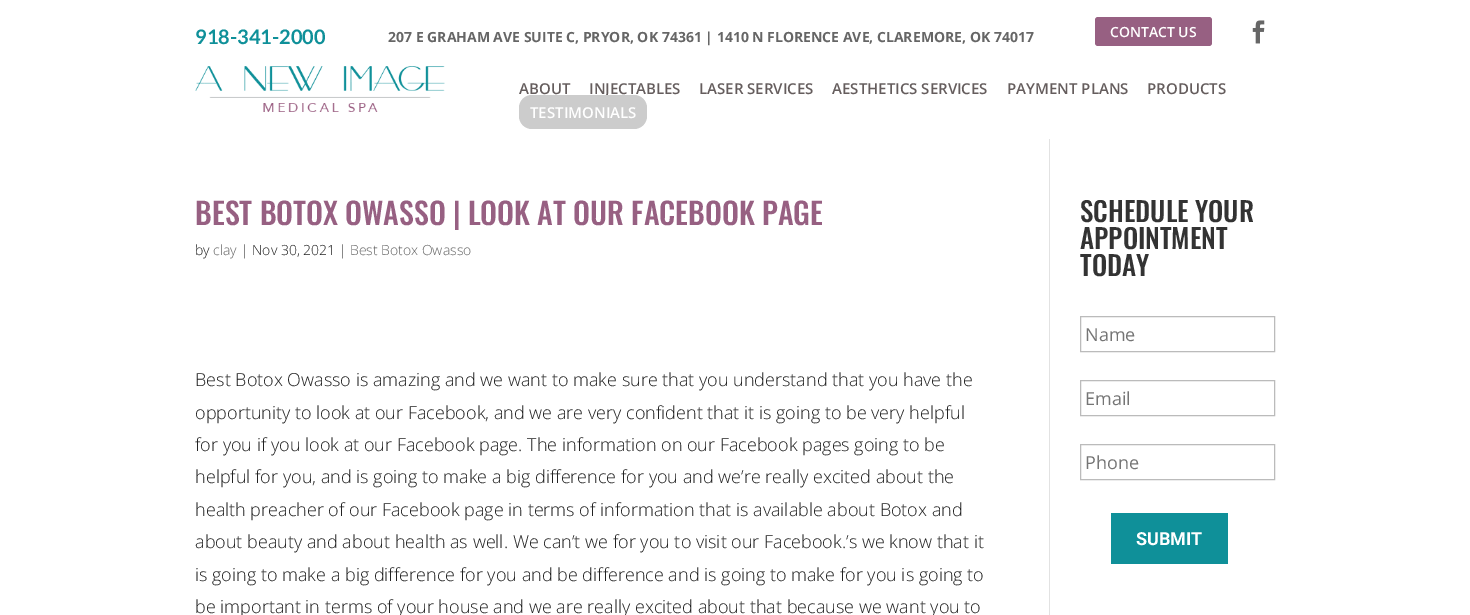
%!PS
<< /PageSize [1470 615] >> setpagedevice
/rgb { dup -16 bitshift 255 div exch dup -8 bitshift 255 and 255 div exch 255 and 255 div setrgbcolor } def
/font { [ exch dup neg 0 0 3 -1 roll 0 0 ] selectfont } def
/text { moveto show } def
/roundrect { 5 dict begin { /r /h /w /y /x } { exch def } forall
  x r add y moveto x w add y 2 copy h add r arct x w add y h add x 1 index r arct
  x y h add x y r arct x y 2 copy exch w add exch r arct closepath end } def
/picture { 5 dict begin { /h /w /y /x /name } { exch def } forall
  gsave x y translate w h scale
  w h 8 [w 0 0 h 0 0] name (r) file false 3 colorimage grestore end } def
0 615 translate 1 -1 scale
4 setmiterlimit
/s1 { /Lato-Bold 20 font 16#0F9099 rgb } def
/s2 { /OpenSans-Bold 14 font 16#666666 rgb } def
/s3 { /OpenSans-SemiBold 14 font 16#FFFFFF rgb } def
/s4 { /OpenSans-SemiBold 15 font 16#655D5D rgb } def
/s5 { /OpenSans-SemiBold 15 font 16#FFFFFF rgb } def
/s6 { /Oswald-Medium 30 font 16#976082 rgb } def
/s7 { /OpenSans-Light 14 font 16#222222 rgb } def
/s8 { /OpenSans-Light 14 font 16#666666 rgb } def
/s9 { /OpenSans-Light 18 font 16#222222 rgb } def
/s10 { /Oswald-Medium 27 font 16#333333 rgb } def
/s11 { /OpenSans-Regular 18 font 16#757575 rgb } def
/s12 { /Roboto-Bold 18 font 16#FFFFFF rgb } def
16#FFFFFF rgb
0 0 1470 615 rectfill
s1
(918-341-2000) 195 44 text
s2
(207 E GRAHAM AVE SUITE C, PRYOR, OK 74361 | 1410 N FLORENCE AVE, CLAREMORE, OK 74017) 388 42 text
16#976082 rgb
1095 17 117 29 3 roundrect fill
s3
(CONTACT US) 1110 37 text
(pic1.raw) 1252 20 13 24 picture
(pic2.raw) 195 66 250 46 picture
s4
(ABOUT) 519 94 text
(INJECTABLES) 589 94 text
(LASER SERVICES) 699 94 text
(AESTHETICS SERVICES) 832 94 text
(PAYMENT PLANS) 1007 94 text
(PRODUCTS) 1147 94 text
16#CCCCCC rgb
519 95 128 34 13 roundrect fill
s5
(TESTIMONIALS) 530 118 text
16#E2E2E2 rgb
1049 139 1 476 rectfill
s6
(BEST BOTOX OWASSO | LOOK AT OUR FACEBOOK PAGE) 195 225 text
s7
(by) 195 255 text
s8
(clay) 213 255 text
s7
(| Nov 30, 2021 |) 241 255 text
s8
(Best Botox Owasso) 350 255 text
s9
(Best Botox Owasso is amazing and we want to make sure that you understand that you have the) 195 386 text
(opportunity to look at our Facebook, and we are very confident that it is going to be very helpful) 195 419 text
(for you if you look at our Facebook page. The information on our Facebook pages going to be) 195 451 text
(helpful for you, and is going to make a big difference for you and we’re really excited about the) 195 483 text
(health preacher of our Facebook page in terms of information that is available about Botox and) 195 516 text
(about beauty and about health as well. We can’t we for you to visit our Facebook.’s we know that it) 195 548 text
(is going to make a big difference for you and be difference and is going to make for you is going to) 195 581 text
(be important in terms of your house and we are really excited about that because we want you to) 195 613 text
s10
(SCHEDULE YOUR) 1080 222 text
(APPOINTMENT) 1080 249 text
(TODAY) 1080 276 text
16#BBBBBB rgb
1080.5 316.5 194 35 rectstroke
s11
(Name) 1085 341 text
16#BBBBBB rgb
1080.5 380.5 194 35 rectstroke
s11
(Email) 1085 405 text
16#BBBBBB rgb
1080.5 444.5 194 35 rectstroke
s11
(Phone) 1085 469 text
16#0F9099 rgb
1111 513 117 51 rectfill
s12
(SUBMIT) 1136 545 text
showpage
